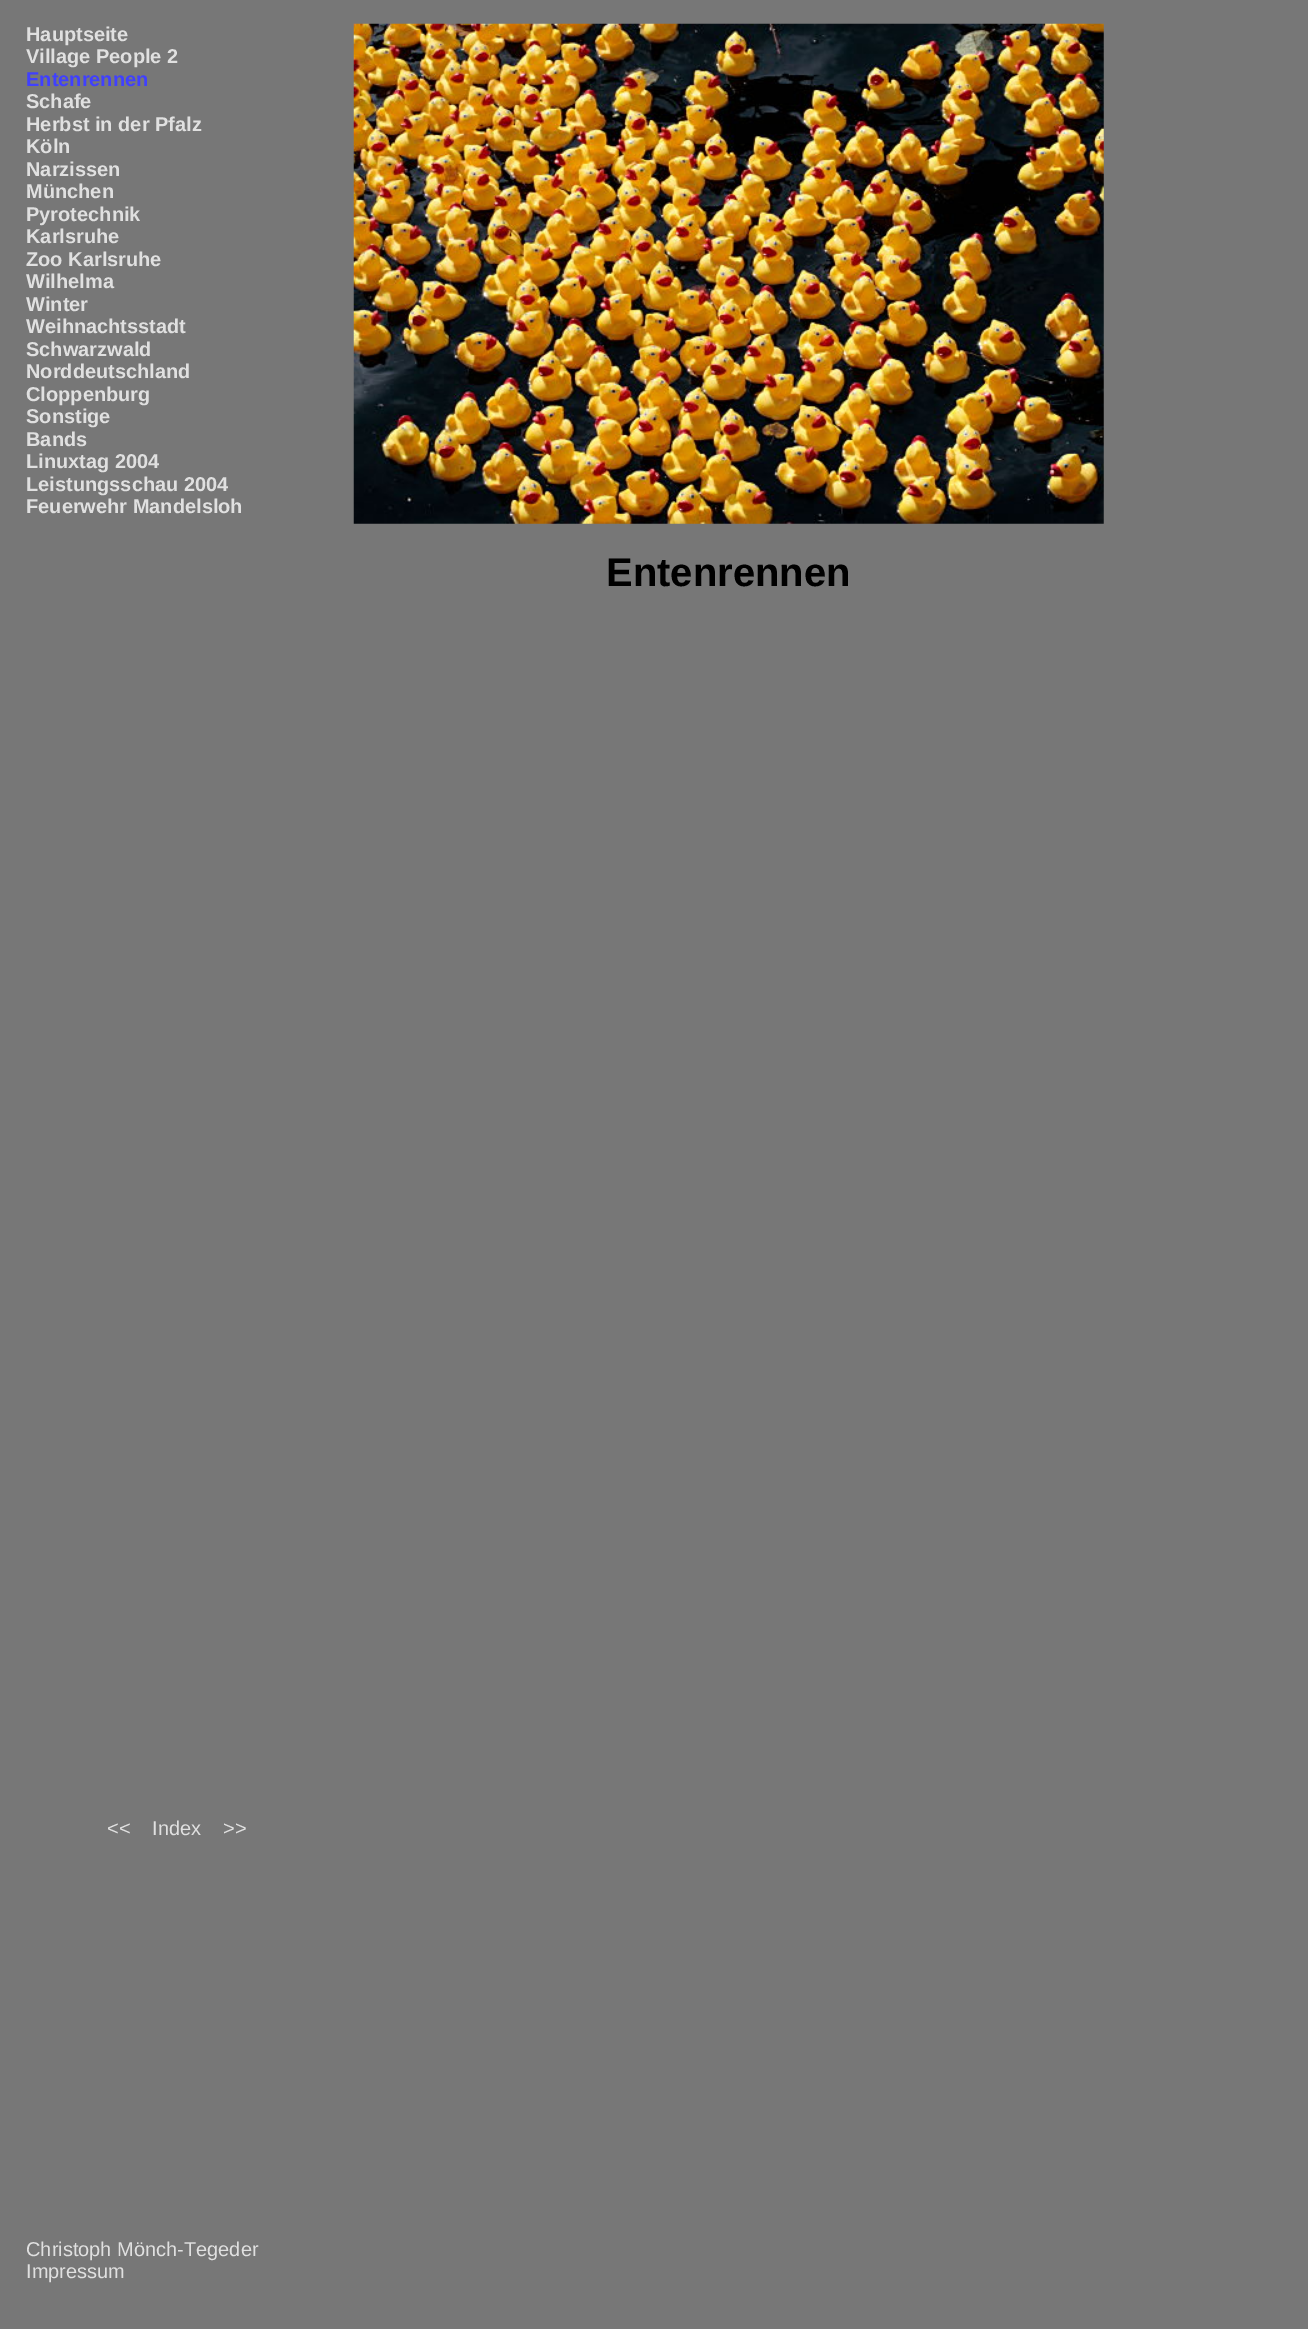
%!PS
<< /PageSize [1308 2329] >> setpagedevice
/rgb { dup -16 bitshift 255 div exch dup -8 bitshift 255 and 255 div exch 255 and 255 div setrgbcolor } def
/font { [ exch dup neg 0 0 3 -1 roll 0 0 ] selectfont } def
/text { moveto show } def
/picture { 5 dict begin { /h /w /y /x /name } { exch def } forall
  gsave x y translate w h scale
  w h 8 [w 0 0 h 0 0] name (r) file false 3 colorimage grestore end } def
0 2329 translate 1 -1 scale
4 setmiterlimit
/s1 { /LiberationSans-Bold 20 font 16#E0E0E0 rgb } def
/s2 { /LiberationSans-Bold 20 font 16#4040FF rgb } def
/s3 { /LiberationSans-Bold 40 font 16#000000 rgb } def
/s4 { /LiberationSans-Regular 20 font 16#E0E0E0 rgb } def
16#777777 rgb
0 0 1308 2329 rectfill
s1
(Hauptseite) 26 41 text
(Village People 2) 26 63 text
s2
(Entenrennen) 26 86 text
s1
(Schafe) 26 108 text
(Herbst in der Pfalz) 26 131 text
(Köln) 26 153 text
(Narzissen) 26 176 text
(München) 26 198 text
(Pyrotechnik) 26 221 text
(Karlsruhe) 26 243 text
(Zoo Karlsruhe) 26 266 text
(Wilhelma) 26 288 text
(Winter) 26 311 text
(Weihnachtsstadt) 26 333 text
(Schwarzwald) 26 356 text
(Norddeutschland) 26 378 text
(Cloppenburg) 26 401 text
(Sonstige) 26 423 text
(Bands) 26 446 text
(Linuxtag 2004) 26 468 text
(Leistungsschau 2004) 26 491 text
(Feuerwehr Mandelsloh) 26 513 text
(pic1.raw) 353 23 751 501 picture
s3
(Entenrennen) 606 586 text
s4
(<<) 107 1835 text
(Index) 152 1835 text
(>>) 223 1835 text
(Christoph Mönch-Tegeder) 26 2256 text
(Impressum) 26 2278 text
showpage
